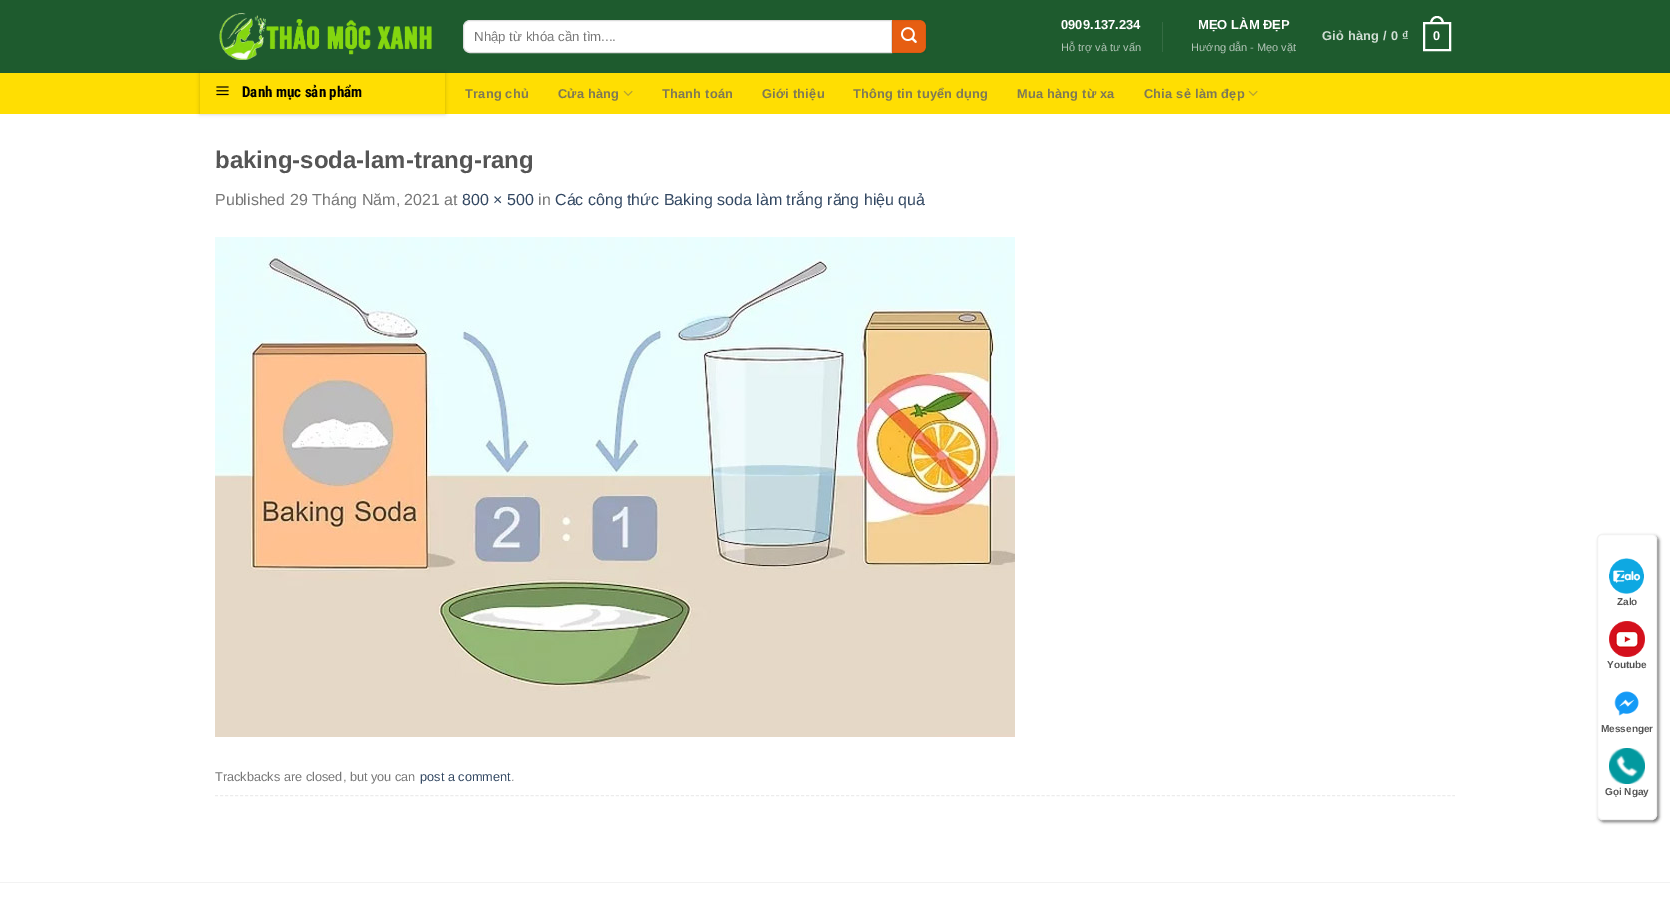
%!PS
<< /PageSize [1670 900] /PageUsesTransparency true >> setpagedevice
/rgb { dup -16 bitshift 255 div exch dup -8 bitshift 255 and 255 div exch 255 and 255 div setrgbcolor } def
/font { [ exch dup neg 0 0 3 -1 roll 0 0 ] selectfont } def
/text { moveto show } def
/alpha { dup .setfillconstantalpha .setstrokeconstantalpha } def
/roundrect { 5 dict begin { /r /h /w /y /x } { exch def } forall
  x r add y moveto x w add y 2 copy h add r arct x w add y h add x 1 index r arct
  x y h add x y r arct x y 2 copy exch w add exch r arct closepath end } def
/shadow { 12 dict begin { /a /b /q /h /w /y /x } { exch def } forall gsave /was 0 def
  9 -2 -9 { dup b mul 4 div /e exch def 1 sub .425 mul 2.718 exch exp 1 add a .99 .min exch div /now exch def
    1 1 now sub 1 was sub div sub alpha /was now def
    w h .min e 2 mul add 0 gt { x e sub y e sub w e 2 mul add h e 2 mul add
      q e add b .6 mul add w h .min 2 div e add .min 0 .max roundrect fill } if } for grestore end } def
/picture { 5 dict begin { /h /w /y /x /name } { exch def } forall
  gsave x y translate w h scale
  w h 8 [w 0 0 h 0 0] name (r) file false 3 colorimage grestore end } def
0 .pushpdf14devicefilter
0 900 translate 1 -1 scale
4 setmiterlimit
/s1 { /LiberationSans-Regular 13.25 font 16#777777 rgb } def
/s2 { /LiberationSans-Bold 13 font 16#FFFFFF rgb } def
/s3 { /LiberationSans-Regular 11 font 16#B2C4B7 rgb } def
/s4 { /RobotoCondensed-Bold 15 font 16#000000 rgb } def
/s5 { /LiberationSans-Bold 24 font 16#555555 rgb } def
/s6 { /LiberationSans-Regular 16 font 16#777777 rgb } def
/s7 { /LiberationSans-Regular 16 font 16#334862 rgb } def
/s8 { /LiberationSans-Regular 12.75 font 16#777777 rgb } def
/s9 { /LiberationSans-Regular 12.75 font 16#334862 rgb } def
/s10 { /LiberationSans-Bold 10 font 16#555555 rgb } def
16#FFFFFF rgb
0 0 1670 900 rectfill
16#1E5B2E rgb
0 0 1670 73 rectfill
(pic1.raw) 219 13 213 47 picture
16#FFFFFF rgb
470 20.5 moveto 891.5 20.5 lineto 891.5 52.5 lineto 470 52.5 lineto 466.5 52.5 463.5 49.5 463.5 46 curveto 463.5 27 lineto 463.5 23.5 466.5 20.5 470 20.5 curveto closepath gsave fill grestore
16#DDDDDD rgb
stroke
s1
(Nhập từ khóa cần tìm....) 474 41 text
16#E65E12 rgb
892 20 moveto 919 20 lineto 923 20 926 23 926 27 curveto 926 46 lineto 926 50 923 53 919 53 curveto 892 53 lineto closepath fill
0.05 alpha
16#000000 rgb
892.5 20.5 33 32 rectstroke
1 alpha
(pic2.raw) 901 27 16 16 picture
s2
(0909.137.234) 1061 29 text
s3
(Hỗ trợ và tư vấn) 1061 51 text
16#356B43 rgb
1162 22 1 30 rectfill
s2
(MẸO LÀM ĐẸP) 1198 29 text
s3
(Hướng dẫn - Mẹo vặt) 1191 51 text
/LiberationSans-Bold 12.75 font
16#D2DED5 rgb
1322 40 moveto 0.25 0 (Giỏ hàng / 0 ₫) ashow
16#FFFFFF rgb
2 setlinewidth
1424 23 26 27 rectstroke
1437 16 moveto 1441.5 16 1444 20 1444 24 curveto 1430 24 lineto 1430 20 1432.5 16 1437 16 curveto closepath 1437 18 moveto 1440.5 18 1442 21 1442 24 curveto 1432 24 lineto 1432 21 1433.5 18 1437 18 curveto closepath eofill
1433 40 moveto 0.25 0 (0) ashow
16#FFDE02 rgb
0 73 1670 41 rectfill
gsave
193 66 moveto 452 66 lineto 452 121 lineto 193 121 lineto closepath 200 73 moveto 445 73 lineto 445 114 lineto 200 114 lineto closepath eoclip newpath
16#000000 rgb
200 73 245 41 0 2 0.2 shadow
grestore
(pic3.raw) 216 86 13 10 picture
s4
(Danh mục sản phẩm) 242 97 text
/LiberationSans-Bold 12.75 font
16#7D7857 rgb
465 98 moveto 0.25 0 (Trang chủ) ashow
558 98 moveto 0.25 0 (Cửa hàng) ashow
(pic4.raw) 623 90 10 6 picture
662 98 moveto 0.25 0 (Thanh toán) ashow
762 98 moveto 0.25 0 (Giới thiệu) ashow
853 98 moveto 0.25 0 (Thông tin tuyển dụng) ashow
1017 98 moveto 0.25 0 (Mua hàng từ xa) ashow
1144 98 moveto 0.25 0 (Chia sẻ làm đẹp) ashow
(pic4.raw) 1248 90 10 6 picture
s5
(baking-soda-lam-trang-rang) 215 168 text
s6
(Published 29 Tháng Năm, 2021 at) 215 205 text
s7
(800 × 500) 462 205 text
s6
(in) 538 205 text
s7
(Các công thức Baking soda làm trắng răng hiệu quả) 555 205 text
(pic5.raw) 215 237 800 500 picture
16#ECECEC rgb
1 setlinewidth
[3 2.01] 0 setdash
215 795.5 moveto 1455 795.5 lineto stroke
s8
(Trackbacks are closed, but you can) 215 781 text
s9
(post a comment) 420 781 text
s8
(.) 511 781 text
16#F2F2F2 rgb
0 882 1670 1 rectfill
16#777777 rgb
1599 536 60 286 5 1.5 1 shadow
16#FFFFFF rgb
1597.5 534.5 59 285 4.5 roundrect gsave fill grestore
16#F2F2F2 rgb
[] 0 setdash
stroke
(pic6.raw) 1609 558 35 36 picture
s10
(Zalo) 1617 605 text
(pic7.raw) 1609 621 36 36 picture
(Youtube) 1607 668 text
(pic8.raw) 1614 691 25 25 picture
(Messenger) 1601 732 text
(pic9.raw) 1609 748 36 36 picture
(Gọi Ngay) 1605 795 text
.poppdf14devicefilter showpage
